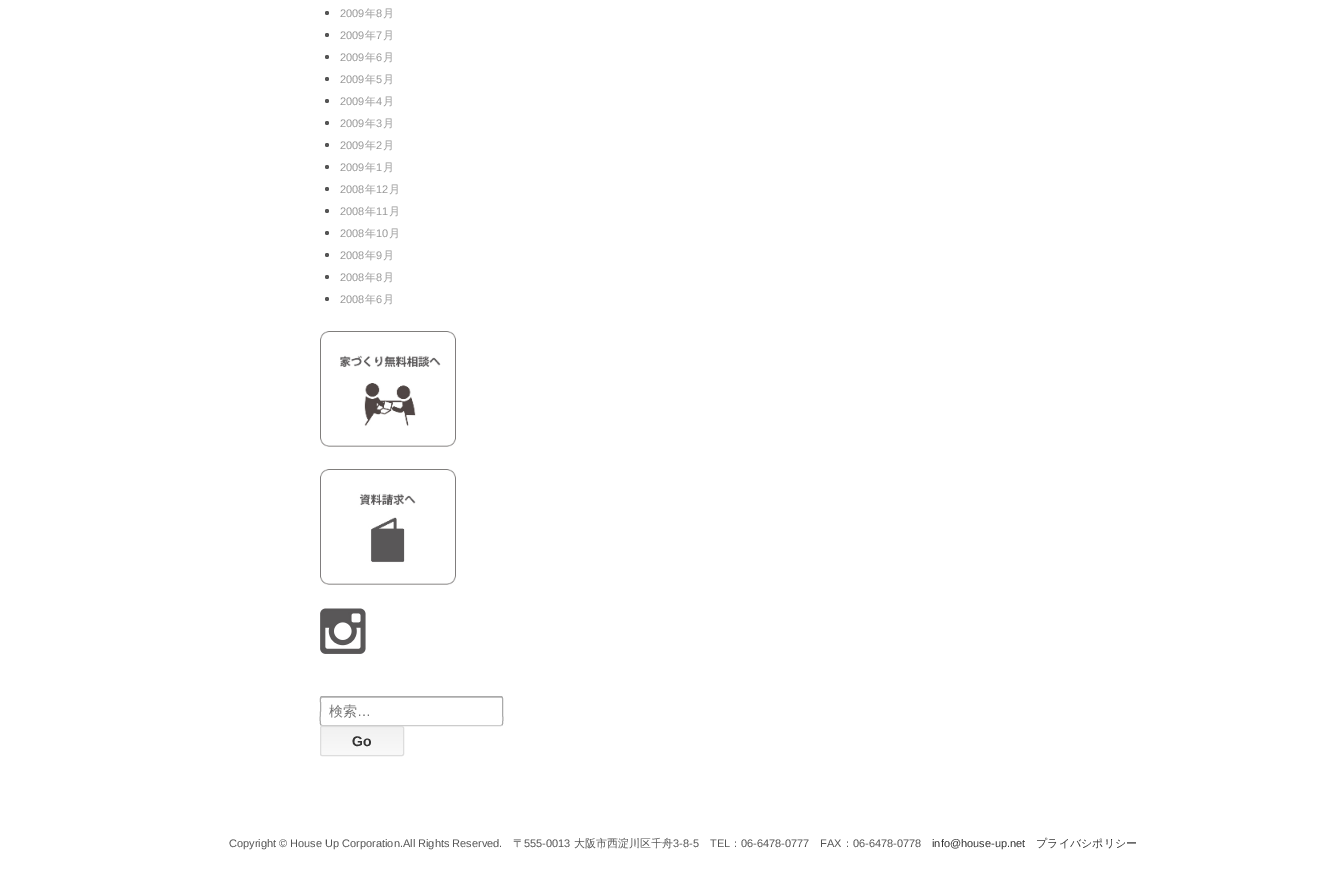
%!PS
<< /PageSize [1337 871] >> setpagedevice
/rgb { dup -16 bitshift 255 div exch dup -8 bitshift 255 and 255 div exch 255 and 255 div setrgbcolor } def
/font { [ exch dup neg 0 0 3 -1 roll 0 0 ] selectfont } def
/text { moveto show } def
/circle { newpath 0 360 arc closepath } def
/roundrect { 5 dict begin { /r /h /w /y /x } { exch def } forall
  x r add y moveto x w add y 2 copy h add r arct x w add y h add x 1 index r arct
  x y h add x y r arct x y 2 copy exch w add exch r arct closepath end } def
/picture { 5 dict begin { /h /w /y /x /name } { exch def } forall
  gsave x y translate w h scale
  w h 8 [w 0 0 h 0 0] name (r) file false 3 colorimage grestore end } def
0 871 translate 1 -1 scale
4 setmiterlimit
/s1 { /LiberationSans-Regular 11 font 16#999999 rgb } def
/s2 { /WenQuanYiZenHei-Medium 11 font 16#999999 rgb } def
/s3 { /WenQuanYiZenHei-Medium 14 font 16#757575 rgb } def
/s4 { /LiberationSans-Regular 14 font 16#757575 rgb } def
/s5 { /LiberationSans-Bold 14 font 16#333333 rgb } def
/s6 { /LiberationSans-Regular 11 font 16#555555 rgb } def
/s7 { /WenQuanYiZenHei-Medium 11 font 16#555555 rgb } def
/s8 { /LiberationSans-Regular 11 font 16#333333 rgb } def
/s9 { /WenQuanYiZenHei-Medium 11 font 16#333333 rgb } def
16#FFFFFF rgb
0 0 1337 871 rectfill
16#555555 rgb
327 13 2 circle fill
s1
(2009) 340 17 text
s2
(年) 365 17 text
s1
(8) 376 17 text
s2
(月) 383 17 text
16#555555 rgb
327 35 2 circle fill
s1
(2009) 340 39 text
s2
(年) 365 39 text
s1
(7) 376 39 text
s2
(月) 383 39 text
16#555555 rgb
327 57 2 circle fill
s1
(2009) 340 61 text
s2
(年) 365 61 text
s1
(6) 376 61 text
s2
(月) 383 61 text
16#555555 rgb
327 79 2 circle fill
s1
(2009) 340 83 text
s2
(年) 365 83 text
s1
(5) 376 83 text
s2
(月) 383 83 text
16#555555 rgb
327 101 2 circle fill
s1
(2009) 340 105 text
s2
(年) 365 105 text
s1
(4) 376 105 text
s2
(月) 383 105 text
16#555555 rgb
327 123 2 circle fill
s1
(2009) 340 127 text
s2
(年) 365 127 text
s1
(3) 376 127 text
s2
(月) 383 127 text
16#555555 rgb
327 145 2 circle fill
s1
(2009) 340 149 text
s2
(年) 365 149 text
s1
(2) 376 149 text
s2
(月) 383 149 text
16#555555 rgb
327 167 2 circle fill
s1
(2009) 340 171 text
s2
(年) 365 171 text
s1
(1) 376 171 text
s2
(月) 383 171 text
16#555555 rgb
327 189 2 circle fill
s1
(2008) 340 193 text
s2
(年) 365 193 text
s1
(12) 376 193 text
s2
(月) 389 193 text
16#555555 rgb
327 211 2 circle fill
s1
(2008) 340 215 text
s2
(年) 365 215 text
s1
(11) 376 215 text
s2
(月) 389 215 text
16#555555 rgb
327 233 2 circle fill
s1
(2008) 340 237 text
s2
(年) 365 237 text
s1
(10) 376 237 text
s2
(月) 389 237 text
16#555555 rgb
327 255 2 circle fill
s1
(2008) 340 259 text
s2
(年) 365 259 text
s1
(9) 376 259 text
s2
(月) 383 259 text
16#555555 rgb
327 277 2 circle fill
s1
(2008) 340 281 text
s2
(年) 365 281 text
s1
(8) 376 281 text
s2
(月) 383 281 text
16#555555 rgb
327 299 2 circle fill
s1
(2008) 340 303 text
s2
(年) 365 303 text
s1
(6) 376 303 text
s2
(月) 383 303 text
(pic1.raw) 320 331 136 116 picture
(pic2.raw) 320 469 136 116 picture
(pic3.raw) 320 608 46 46 picture
16#CCCCCC rgb
322 698 moveto 502 698 lineto 502 699 lineto 502 697 lineto 322 697 lineto 321 697 321 698 321 699 curveto 321 698 321 698 322 698 curveto closepath fill
502 725 moveto 501 725.5 lineto 322 725.5 lineto 321 725 lineto stroke
16#AAAAAA rgb
321 725 moveto 319.5 723.5 320.5 713 320.5 711 curveto 320.5 702.5 lineto 320.5 702 319.5 696.5 322 696.5 curveto 501 696.5 lineto 503.5 696.5 502.5 702 502.5 702.5 curveto 502.5 711 lineto 502.5 713 503.5 723.5 502 725 curveto stroke
s3
(検索) 329 716 text
s4
(…) 357 716 text
gsave
320 726 84 30 2 roundrect clip newpath
gsave 320 727 moveto 404 727 lineto 404 755 lineto 320 755 lineto closepath clip newpath
<< /ShadingType 2 /ColorSpace /DeviceRGB /Coords [362 755 362 727] /Extend [true true] /Function << /FunctionType 2 /Domain [0 1] /C0 [0.976 0.976 0.976] /C1 [0.945 0.945 0.945] /N 1 >> >> shfill grestore
grestore
16#F5F5F5 rgb
322 728 moveto 402 728 lineto 403 728 403 728 403 729 curveto 403 728 403 727 402 727 curveto 322 727 lineto 321 727 321 728 321 729 curveto 321 728 321 728 322 728 curveto closepath fill
16#DDDDDD rgb
320.5 726.5 83 29 1.5 roundrect stroke
s5
(Go) 352 746 text
s6
(Copyright © House Up Corporation.All Rights Reserved.) 229 847 text
s7
(〒) 513 847 text
s6
(555-0013) 524 847 text
s7
(大阪市西淀川区千舟) 574 847 text
s6
(3-8-5) 673 847 text
(TEL) 710 847 text
s7
(：) 730 847 text
s6
(06-6478-0777) 741 847 text
(FAX) 820 847 text
s7
(：) 842 847 text
s6
(06-6478-0778) 853 847 text
s8
(info@house-up.net) 932 847 text
s9
(プライバシポリシー) 1036 847 text
showpage
